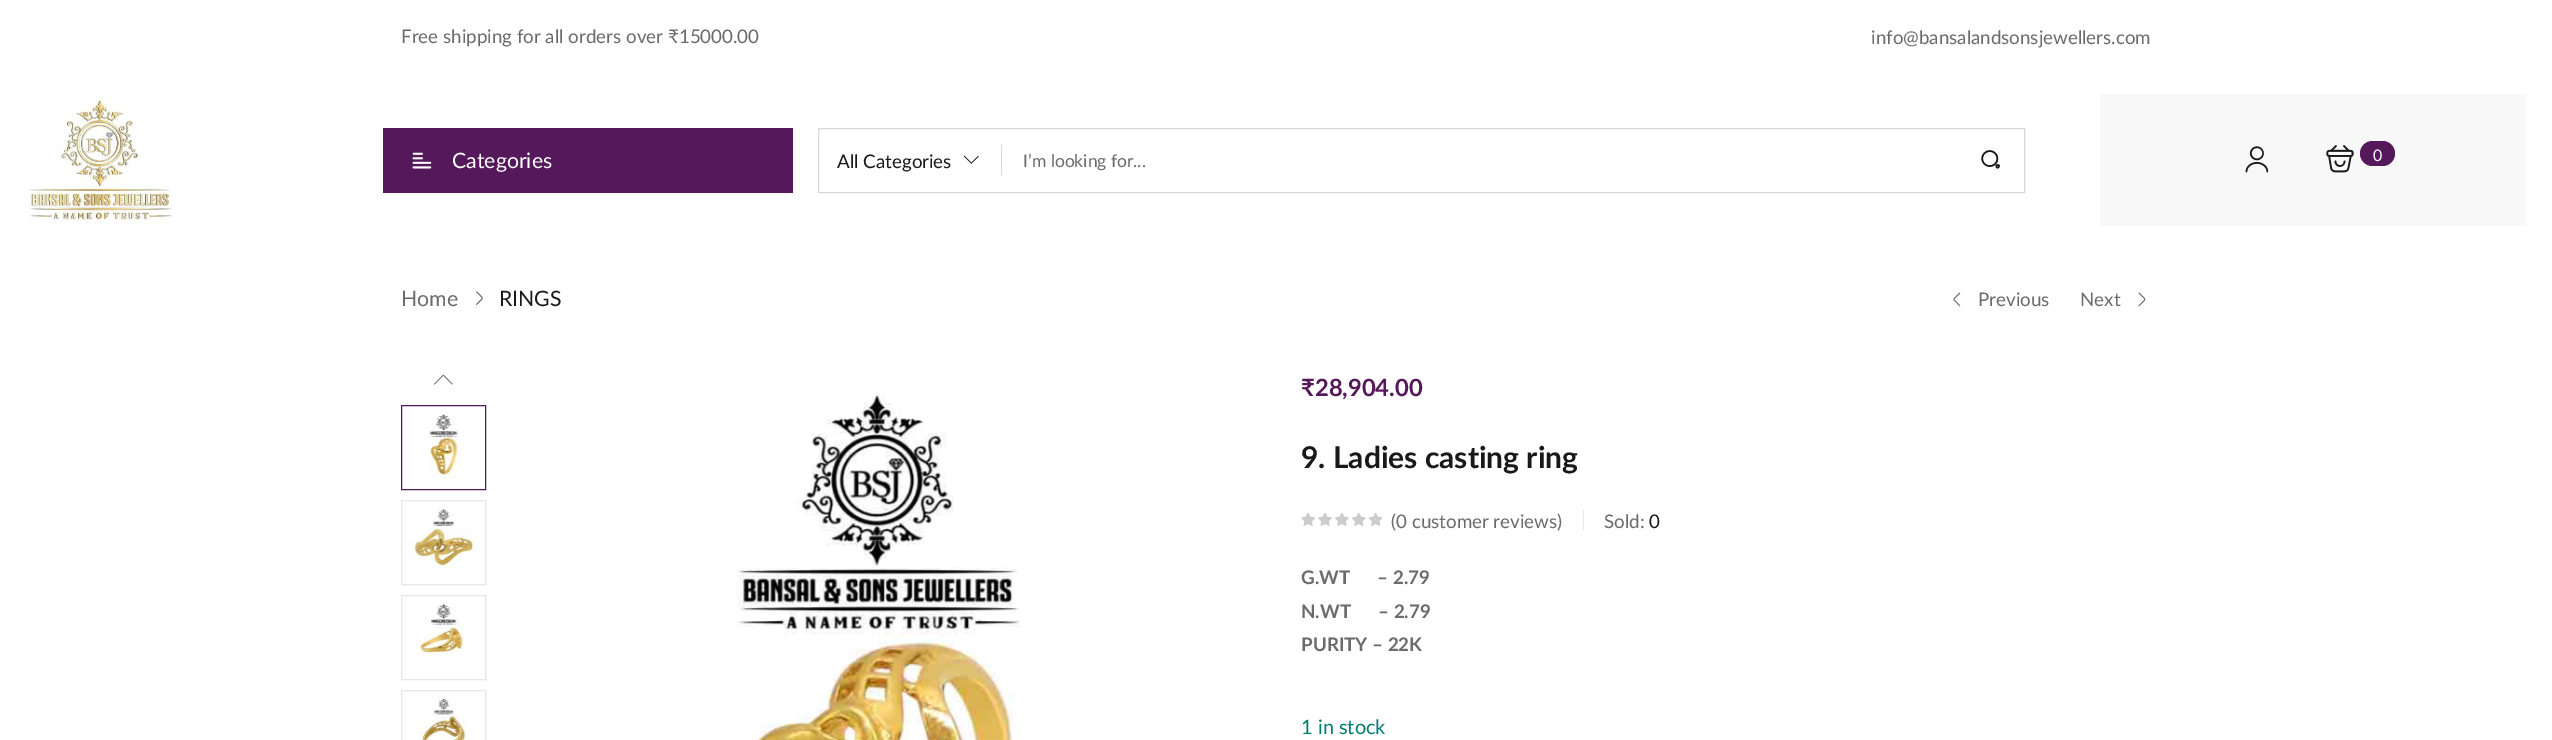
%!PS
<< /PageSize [2552 740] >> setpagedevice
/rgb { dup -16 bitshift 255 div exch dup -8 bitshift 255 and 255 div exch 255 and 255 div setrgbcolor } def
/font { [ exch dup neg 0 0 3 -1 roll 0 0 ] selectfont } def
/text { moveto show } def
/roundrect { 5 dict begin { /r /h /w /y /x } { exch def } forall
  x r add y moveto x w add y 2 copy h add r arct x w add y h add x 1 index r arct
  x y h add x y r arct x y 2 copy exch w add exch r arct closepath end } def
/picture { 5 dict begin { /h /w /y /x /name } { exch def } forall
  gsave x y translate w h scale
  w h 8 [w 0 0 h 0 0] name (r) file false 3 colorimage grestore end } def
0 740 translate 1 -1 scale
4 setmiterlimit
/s1 { /Lato-Regular 18.75 font 16#6B6B6B rgb } def
/s2 { /Lato-Regular 21.25 font 16#FFFFFF rgb } def
/s3 { /Lato-Regular 18.75 font 16#191919 rgb } def
/s4 { /Lato-Regular 17.5 font 16#6B6B6B rgb } def
/s5 { /Lato-Regular 16 font 16#FFFFFF rgb } def
/s6 { /Lato-Regular 21.25 font 16#6B6B6B rgb } def
/s7 { /Lato-Regular 21.25 font 16#191919 rgb } def
/s8 { /Lato-Bold 23.75 font 16#55185B rgb } def
/s9 { /Lato-Bold 30 font 16#191919 rgb } def
/s10 { /Lato-Bold 18.75 font 16#6B6B6B rgb } def
/s11 { /Lato-Regular 20 font 16#007D71 rgb } def
16#FFFFFF rgb
0 0 2552 740 rectfill
s1
(Free shipping for all orders over ₹15000.00) 401 43 text
(info@bansalandsonsjewellers.com) 1871 44 text
(pic1.raw) 27 96 147 130 picture
16#55185B rgb
383 128 410 65 rectfill
(pic2.raw) 412 152 20 17 picture
s2
(Categories) 452 168 text
16#D7D7D7 rgb
818.5 128.5 1206 64 rectstroke
16#D9D9D9 rgb
1001 145 1 30 rectfill
s3
(All Categories) 837 168 text
(pic3.raw) 963 155 16 9 picture
s4
(I’m looking for...) 1023 167 text
(pic4.raw) 1981 150 19 19 picture
16#F8F8F8 rgb
2100 94 426 132 rectfill
(pic5.raw) 2245 146 24 27 picture
(pic6.raw) 2326 145 28 28 picture
16#55185B rgb
2360 141 35 25 12.5 roundrect fill
s5
(0) 2373 161 text
s6
(Home) 401 306 text
(pic7.raw) 476 291 7 14 picture
s7
(RINGS) 499 306 text
(pic8.raw) 1953 292 8 15 picture
s1
(Previous) 1978 306 text
(Next) 2080 306 text
(pic9.raw) 2138 292 8 15 picture
(pic10.raw) 433 374 20 11 picture
16#55185B rgb
401.5 405.5 84 84 rectstroke
(pic11.raw) 429 412 37 69 picture
16#E7E7E7 rgb
401.5 500.5 84 84 rectstroke
(pic12.raw) 407 506 70 64 picture
401.5 595.5 84 84 rectstroke
(pic13.raw) 419 602 47 58 picture
401.5 690.5 84 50 rectstroke
(pic14.raw) 419 696 47 44 picture
(pic15.raw) 737 392 284 348 picture
s8
(₹28,904.00) 1301 396 text
s9
(9. Ladies casting ring) 1301 468 text
(pic16.raw) 1301 513 82 13 picture
s1
(\(0 customer reviews\)) 1391 528 text
16#E7E7E7 rgb
1583 510 1 20 rectfill
s1
(Sold:) 1604 528 text
s3
(0) 1649 528 text
s10
(G.WT      – 2.79) 1301 584 text
(N.WT      – 2.79) 1301 618 text
(PURITY – 22K) 1301 651 text
s11
(1 in stock) 1301 734 text
showpage
